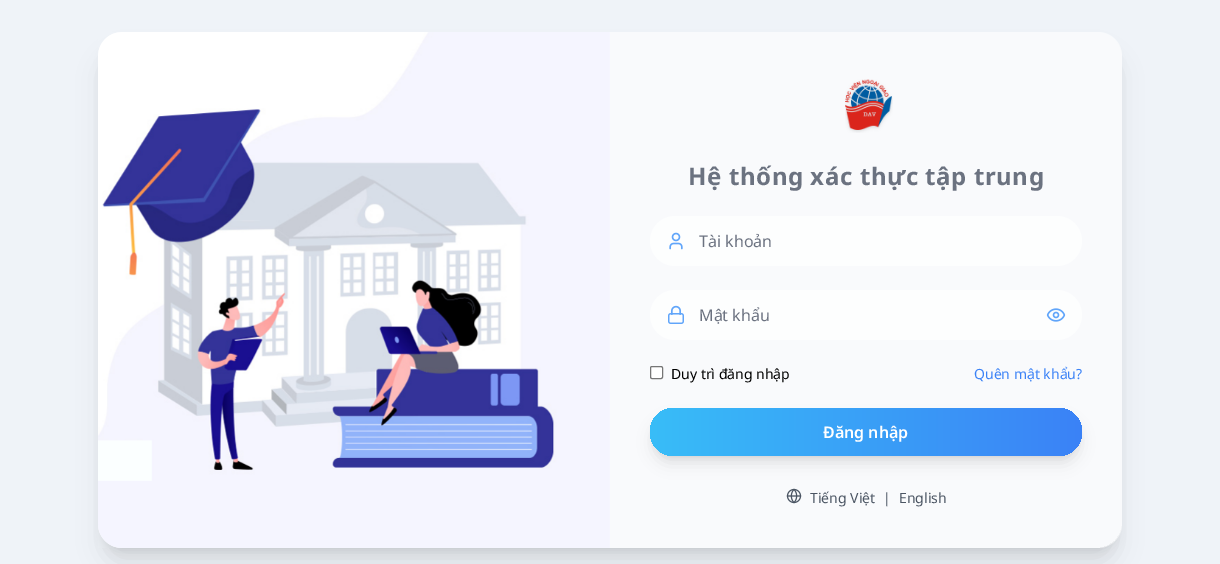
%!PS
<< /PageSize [1220 564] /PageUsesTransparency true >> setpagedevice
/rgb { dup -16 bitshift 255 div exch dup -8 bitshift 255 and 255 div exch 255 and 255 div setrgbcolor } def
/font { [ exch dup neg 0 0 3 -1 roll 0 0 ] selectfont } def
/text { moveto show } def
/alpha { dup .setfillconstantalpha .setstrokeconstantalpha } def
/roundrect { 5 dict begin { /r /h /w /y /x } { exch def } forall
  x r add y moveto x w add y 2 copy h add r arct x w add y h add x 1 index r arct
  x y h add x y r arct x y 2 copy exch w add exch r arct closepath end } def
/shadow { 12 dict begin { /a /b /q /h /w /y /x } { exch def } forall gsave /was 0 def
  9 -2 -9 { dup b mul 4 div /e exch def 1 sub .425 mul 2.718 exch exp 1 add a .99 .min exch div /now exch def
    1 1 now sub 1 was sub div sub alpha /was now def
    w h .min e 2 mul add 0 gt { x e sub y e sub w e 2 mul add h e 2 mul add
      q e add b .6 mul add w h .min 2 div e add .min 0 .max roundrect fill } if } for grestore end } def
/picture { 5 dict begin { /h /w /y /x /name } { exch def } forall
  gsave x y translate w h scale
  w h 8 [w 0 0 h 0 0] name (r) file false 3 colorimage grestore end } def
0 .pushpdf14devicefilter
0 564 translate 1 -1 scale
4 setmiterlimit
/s1 { /NotoSans-Regular 16 font 16#6B7280 rgb } def
/s2 { /NotoSans-Regular 14 font 16#000000 rgb } def
/s3 { /NotoSans-Regular 14 font 16#3B82F6 rgb } def
/s4 { /NotoSans-SemiBold 16 font 16#FFFFFF rgb } def
/s5 { /NotoSans-Regular 14 font 16#4B5563 rgb } def
16#EFF3F8 rgb
0 0 1220 564 rectfill
gsave
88 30 moveto 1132 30 lineto 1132 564 lineto 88 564 lineto closepath 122 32 moveto 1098 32 lineto 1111.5 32 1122 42.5 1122 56 curveto 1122 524 lineto 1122 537.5 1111.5 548 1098 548 curveto 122 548 lineto 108.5 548 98 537.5 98 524 curveto 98 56 lineto 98 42.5 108.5 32 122 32 curveto closepath eoclip newpath
16#000000 rgb
104 46 1012 504 18 5 0.1 shadow
grestore
gsave
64 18 moveto 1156 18 lineto 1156 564 lineto 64 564 lineto closepath 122 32 moveto 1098 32 lineto 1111.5 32 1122 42.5 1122 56 curveto 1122 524 lineto 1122 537.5 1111.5 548 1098 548 curveto 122 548 lineto 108.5 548 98 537.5 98 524 curveto 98 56 lineto 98 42.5 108.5 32 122 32 curveto closepath eoclip newpath
16#000000 rgb
103 57 1014 506 19 12.5 0.1 shadow
grestore
0.6 alpha
16#FFFFFF rgb
98 32 1024 516 24 roundrect fill
1 alpha
(pic1.raw) 98 32 512 516 picture
(pic2.raw) 845 79 48 54 picture
/NotoSans-Bold 24 font
16#6B7280 rgb
688 185 moveto 0.6 0 (Hệ thống xác thực tập trung) ashow
16#FDFEFE rgb
650 216 432 50 25 roundrect fill
(pic3.raw) 669 232 14 18 picture
s1
(Tài khoản) 699 247 text
16#FDFEFE rgb
650 290 432 50 25 roundrect fill
(pic4.raw) 668 305 16 19 picture
s1
(Mật khẩu) 699 321 text
(pic5.raw) 1046 308 20 14 picture
16#FFFFFF rgb
650.5 366.5 12 12 1.5 roundrect gsave fill grestore
16#767676 rgb
stroke
s2
(Duy trì đăng nhập) 671 379 text
s3
(Quên mật khẩu?) 974 379 text
16#000000 rgb
654 416 424 40 20 3 0.1 shadow
653 421 426 42 21 7.5 0.1 shadow
gsave 650 408 432 48 24 roundrect clip newpath
<< /ShadingType 2 /ColorSpace /DeviceRGB /Coords [650 432 1082 432] /Extend [true true] /Function << /FunctionType 2 /Domain [0 1] /C0 [0.22 0.741 0.973] /C1 [0.231 0.51 0.965] /N 1 >> >> shfill grestore
s4
(Đăng nhập) 823 438 text
(pic6.raw) 786 488 16 16 picture
s5
(Tiếng Việt) 810 503 text
(|) 883 503 text
(English) 899 503 text
.poppdf14devicefilter showpage
